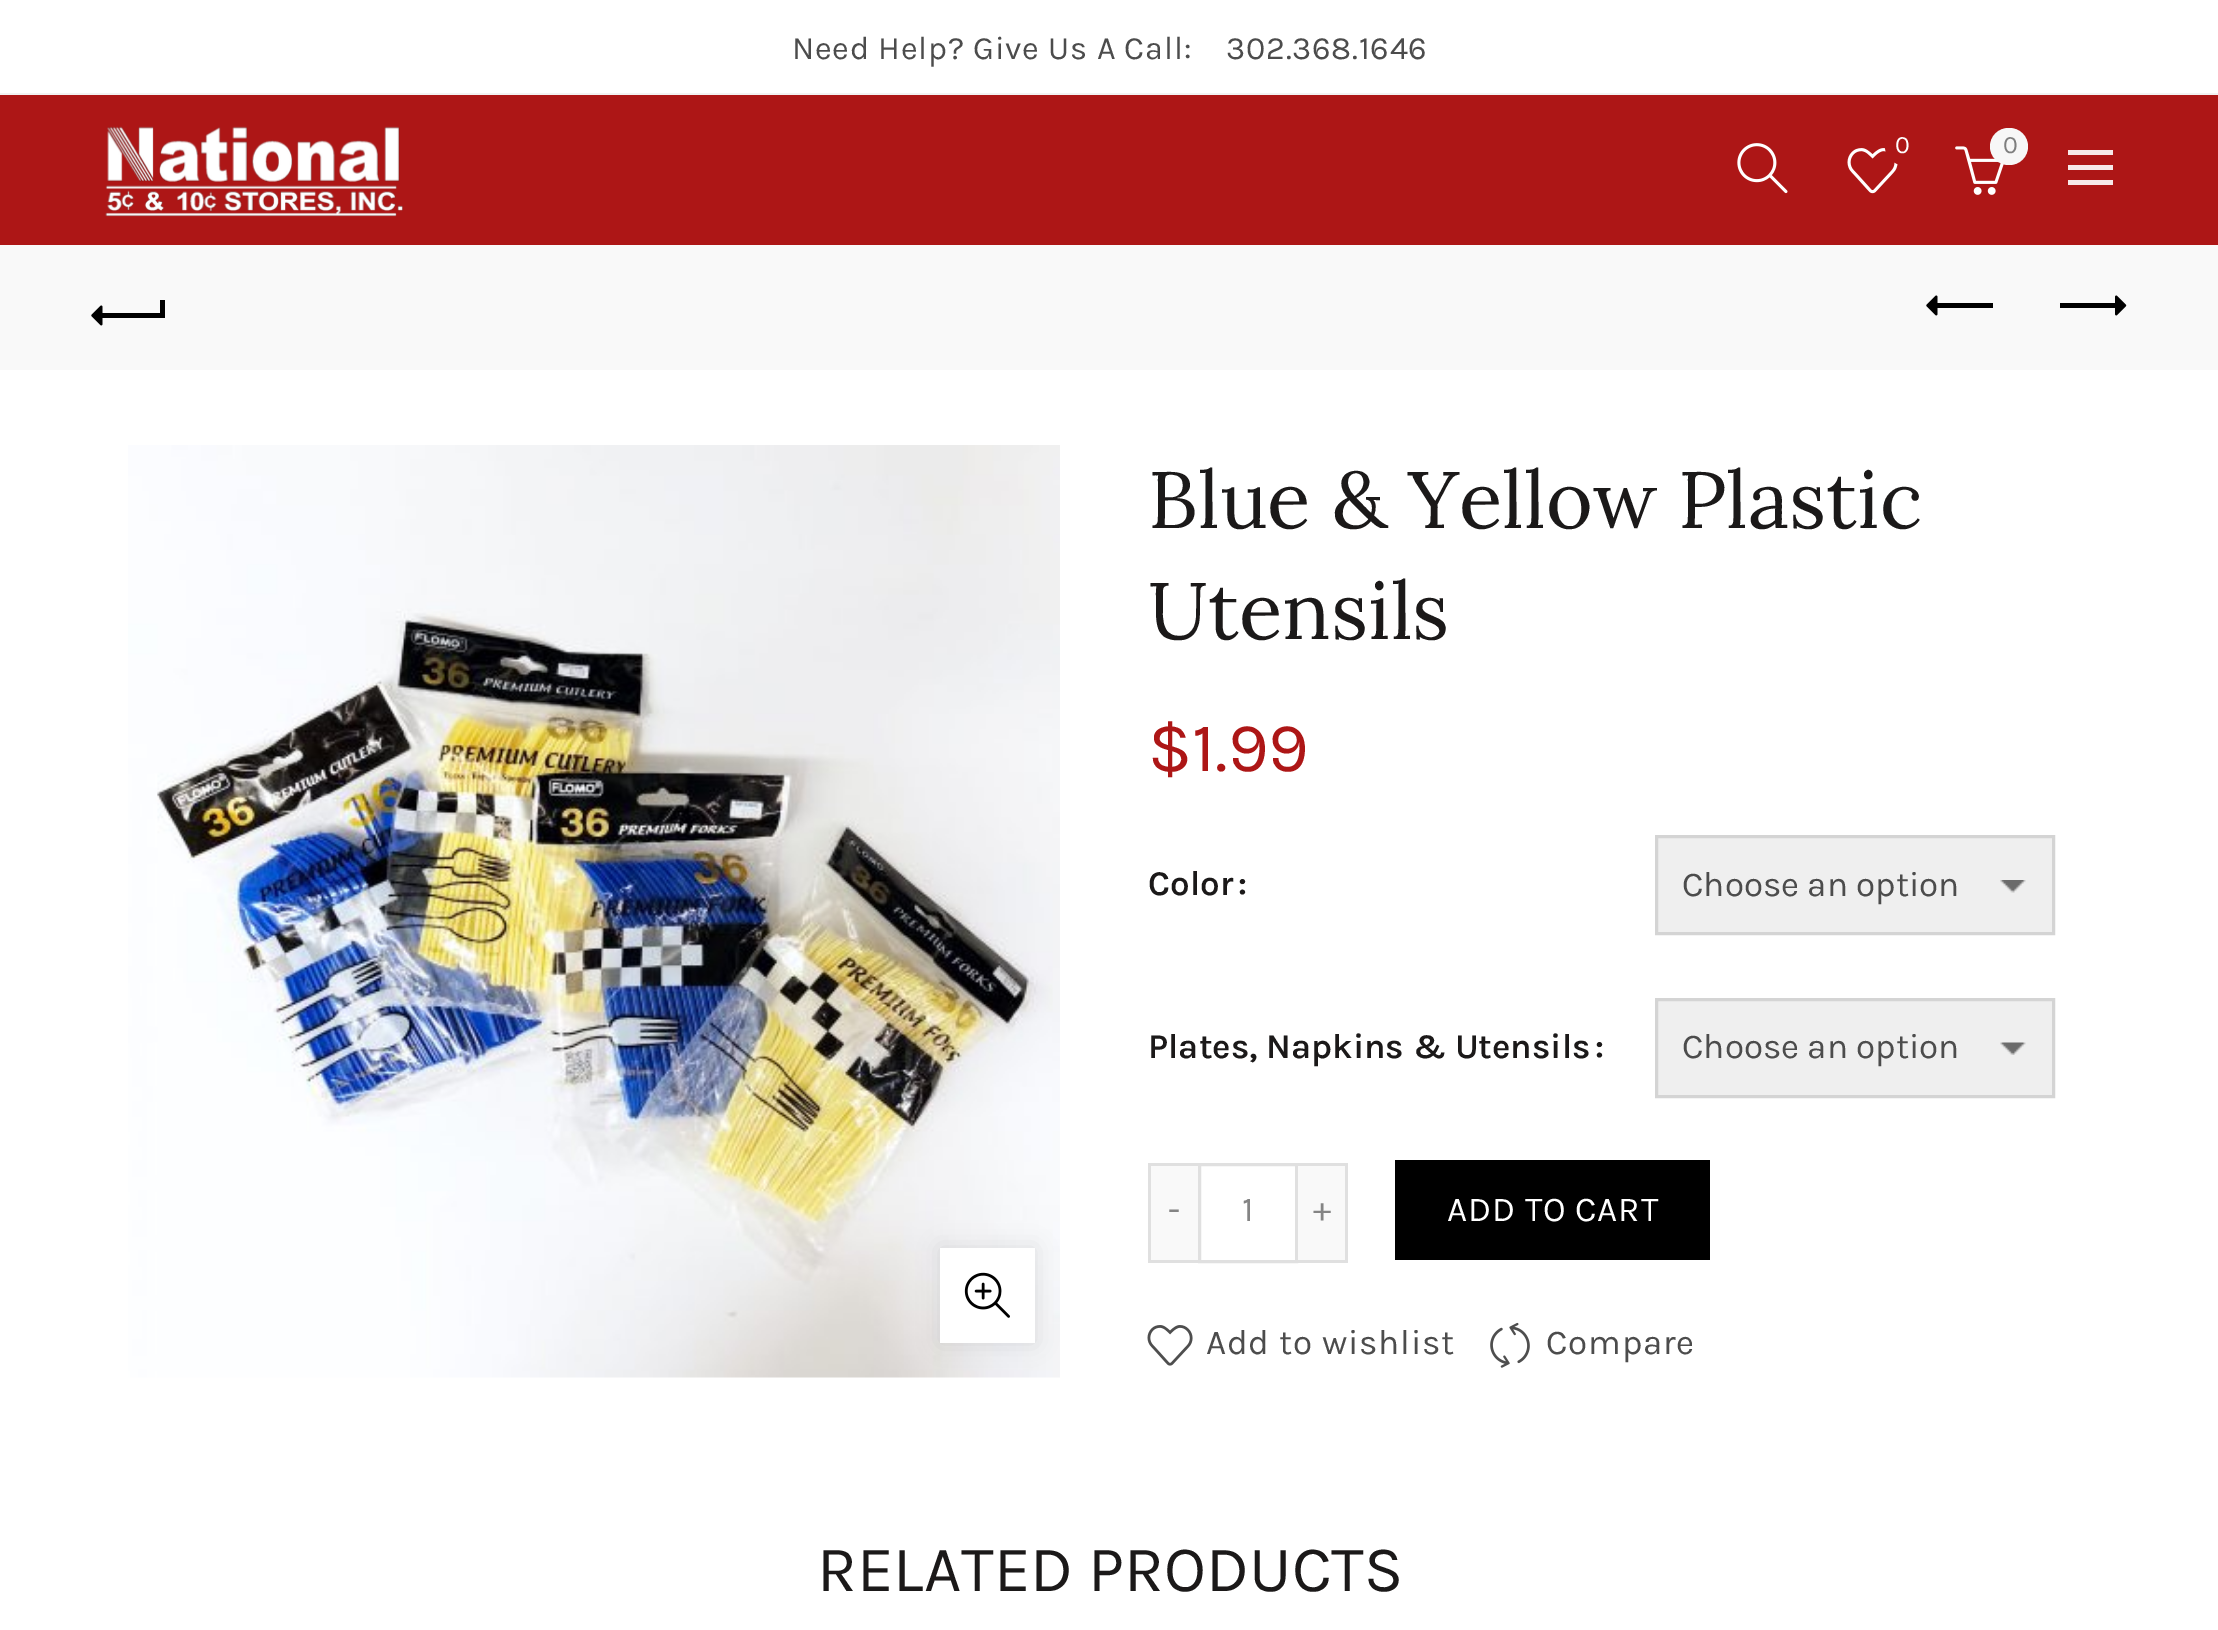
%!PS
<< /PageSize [2218 1630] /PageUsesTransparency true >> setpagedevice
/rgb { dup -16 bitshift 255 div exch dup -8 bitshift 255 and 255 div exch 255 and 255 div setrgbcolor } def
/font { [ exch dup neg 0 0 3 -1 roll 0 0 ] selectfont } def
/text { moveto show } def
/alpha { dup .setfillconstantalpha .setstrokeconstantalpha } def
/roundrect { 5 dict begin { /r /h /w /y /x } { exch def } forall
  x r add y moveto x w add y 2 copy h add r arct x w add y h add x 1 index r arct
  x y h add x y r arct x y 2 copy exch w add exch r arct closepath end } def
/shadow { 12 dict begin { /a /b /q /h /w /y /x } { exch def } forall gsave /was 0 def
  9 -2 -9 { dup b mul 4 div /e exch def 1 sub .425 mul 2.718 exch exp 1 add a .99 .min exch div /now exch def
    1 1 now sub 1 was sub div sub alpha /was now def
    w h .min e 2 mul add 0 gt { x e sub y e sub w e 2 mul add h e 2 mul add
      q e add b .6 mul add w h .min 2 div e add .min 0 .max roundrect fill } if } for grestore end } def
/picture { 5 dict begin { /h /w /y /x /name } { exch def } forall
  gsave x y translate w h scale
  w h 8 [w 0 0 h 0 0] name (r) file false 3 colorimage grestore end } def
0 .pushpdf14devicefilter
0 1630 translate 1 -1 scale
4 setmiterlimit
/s1 { /Karla-Regular 25 font 16#FFFFFF rgb } def
/s2 { /Karla-Regular 25 font 16#7E7E7E rgb } def
/s3 { /Lora-Regular 80 font 16#1B1919 rgb } def
/s4 { /Karla-Regular 70 font 16#AD1616 rgb } def
/s5 { /Karla-SemiBold 35 font 16#1B1919 rgb } def
/s6 { /Karla-Regular 35 font 16#4C4C4C rgb } def
/s7 { /Karla-Regular 35 font 16#848484 rgb } def
/s8 { /Karla-Regular 65 font 16#1B1919 rgb } def
16#FFFFFF rgb
0 0 2218 1630 rectfill
16#F2F2F2 rgb
0 93 2218 2 rectfill
/Karla-Regular 32.5 font
16#4C4C4C rgb
792 59 moveto 0.75 0 (Need Help? Give Us A Call:) ashow
1226 59 moveto 0.75 0 (302.368.1646) ashow
16#AD1616 rgb
0 95 2218 150 rectfill
(pic1.raw) 105 126 298 91 picture
(pic2.raw) 1737 143 51 51 picture
(pic3.raw) 1847 148 51 46 picture
1885 128 38 37 18.5 roundrect fill
s1
(0) 1895 153 text
(pic4.raw) 1955 146 49 49 picture
16#F7F7F7 rgb
1990 128 38 37 18.5 roundrect fill
s2
(0) 2003 153 text
16#F7E8E8 rgb
2068 165 45 5 rectfill
2068 150 45 5 rectfill
2068 180 45 5 rectfill
16#F9F9F9 rgb
0 245 2218 125 rectfill
16#000000 rgb
100 313 63 5 rectfill
(pic5.raw) 91 305 12 21 picture
160 300 5 18 rectfill
1935 303 58 5 rectfill
(pic5.raw) 1926 295 12 21 picture
2060 303 58 5 rectfill
(pic6.raw) 2115 295 12 21 picture
(pic7.raw) 128 445 932 933 picture
940 1248 95 95 0 11 0.1 shadow
16#FFFFFF rgb
940 1248 95 95 rectfill
(pic8.raw) 964 1272 46 46 picture
s3
(Blue & Yellow Plastic) 1148 528 text
(Utensils) 1148 639 text
s4
($1.99) 1148 771 text
s5
(Color) 1148 895 text
(:) 1238 895 text
16#EFEFEF rgb
1658 838 394 94 rectfill
(pic9.raw) 2000 880 26 13 picture
16#D4D4D4 rgb
3 setlinewidth
1656.5 836.5 397 97 rectstroke
s6
(Choose an option) 1682 896 text
s5
(Plates, Napkins & Utensils) 1148 1058 text
(:) 1595 1058 text
16#EFEFEF rgb
1658 1001 394 94 rectfill
(pic10.raw) 2000 1042 26 13 picture
16#D4D4D4 rgb
1656.5 999.5 397 97 rectstroke
s6
(Choose an option) 1682 1058 text
16#F9F9F9 rgb
1151 1166 47 94 rectfill
16#E0E0E0 rgb
1148 1163 50 3 rectfill
1148 1260 50 3 rectfill
1148 1163 3 100 rectfill
s7
(-) 1168 1221 text
16#E0E0E0 rgb
1199.5 1164.5 97 97 rectstroke
s7
(1) 1242 1221 text
16#F9F9F9 rgb
1298 1166 47 94 rectfill
16#E0E0E0 rgb
1298 1163 50 3 rectfill
1345 1163 3 100 rectfill
1298 1260 50 3 rectfill
s7
(+) 1313 1221 text
16#000000 rgb
1395 1160 315 100 rectfill
16#FFFFFF rgb
1447 1221 moveto 0.75 0 (ADD TO CART) ashow
(pic11.raw) 1147 1325 46 41 picture
16#4C4C4C rgb
1206 1354 moveto 0.75 0 (Add to wishlist) ashow
(pic12.raw) 1490 1322 40 46 picture
1546 1354 moveto 0.75 0 (Compare) ashow
s8
(RELATED PRODUCTS) 817 1591 text
.poppdf14devicefilter showpage
